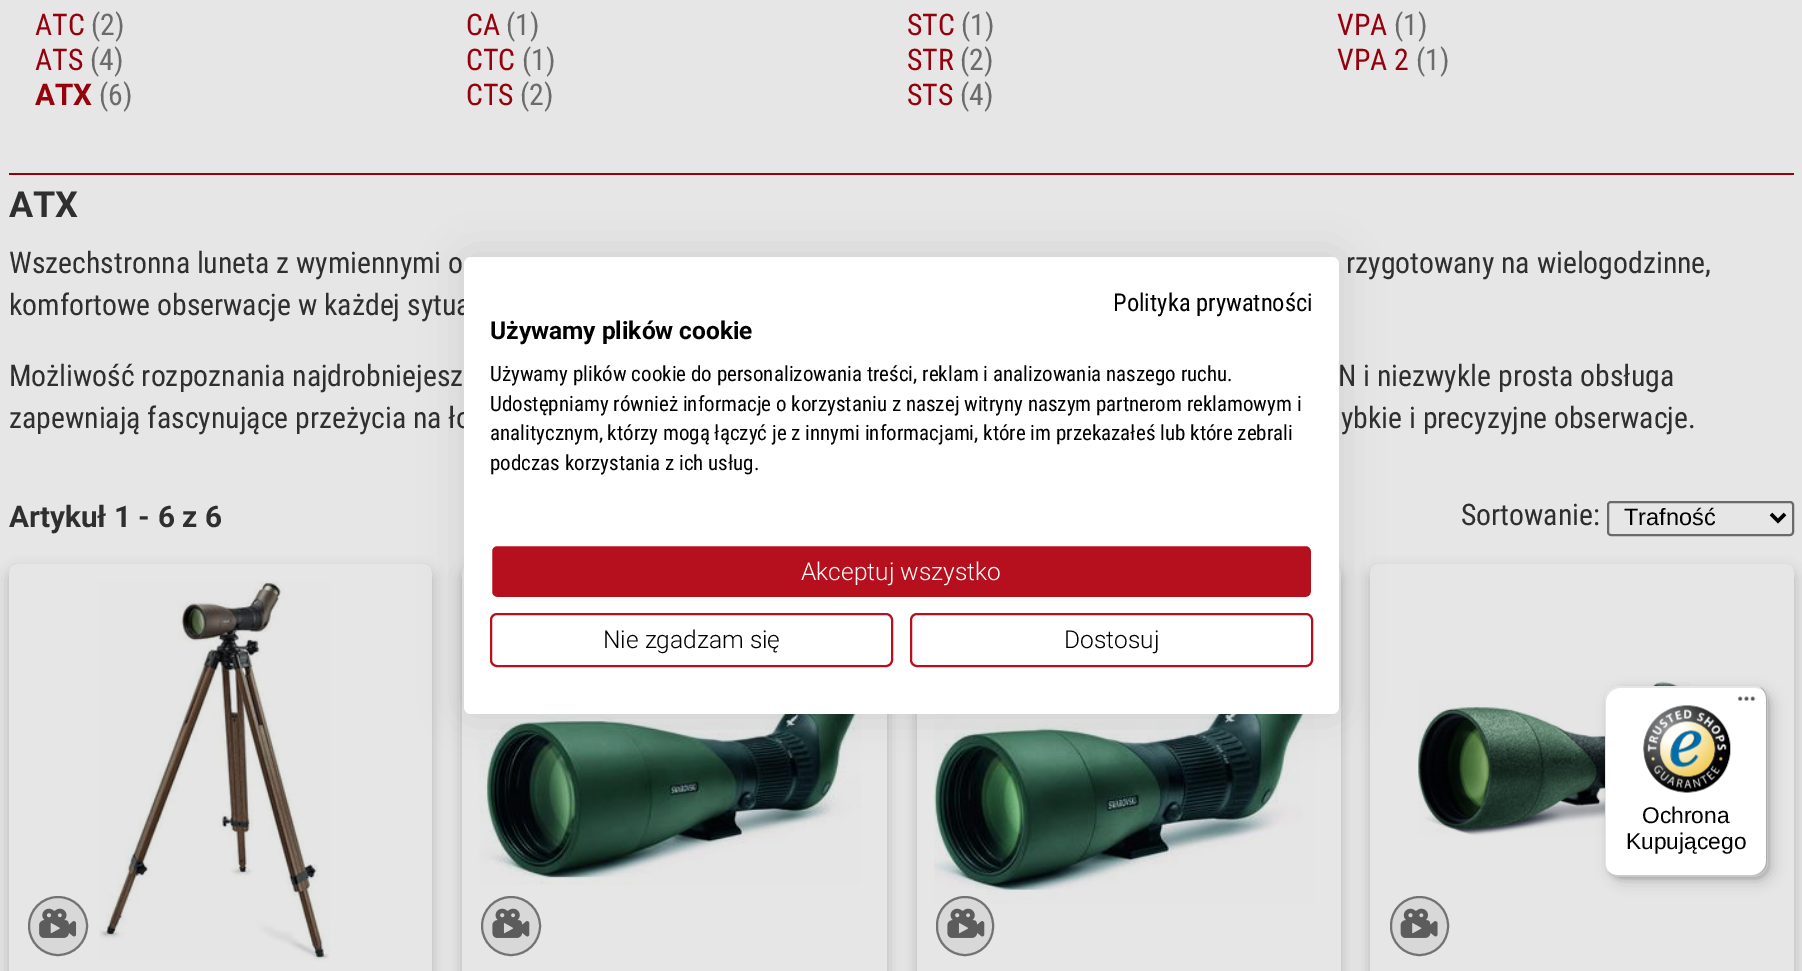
%!PS
<< /PageSize [1802 971] /PageUsesTransparency true >> setpagedevice
/rgb { dup -16 bitshift 255 div exch dup -8 bitshift 255 and 255 div exch 255 and 255 div setrgbcolor } def
/font { [ exch dup neg 0 0 3 -1 roll 0 0 ] selectfont } def
/text { moveto show } def
/alpha { dup .setfillconstantalpha .setstrokeconstantalpha } def
/circle { newpath 0 360 arc closepath } def
/roundrect { 5 dict begin { /r /h /w /y /x } { exch def } forall
  x r add y moveto x w add y 2 copy h add r arct x w add y h add x 1 index r arct
  x y h add x y r arct x y 2 copy exch w add exch r arct closepath end } def
/shadow { 12 dict begin { /a /b /q /h /w /y /x } { exch def } forall gsave /was 0 def
  9 -2 -9 { dup b mul 4 div /e exch def 1 sub .425 mul 2.718 exch exp 1 add a .99 .min exch div /now exch def
    1 1 now sub 1 was sub div sub alpha /was now def
    w h .min e 2 mul add 0 gt { x e sub y e sub w e 2 mul add h e 2 mul add
      q e add b .6 mul add w h .min 2 div e add .min 0 .max roundrect fill } if } for grestore end } def
/picture { 5 dict begin { /h /w /y /x /name } { exch def } forall
  gsave x y translate w h scale
  w h 8 [w 0 0 h 0 0] name (r) file false 3 colorimage grestore end } def
0 .pushpdf14devicefilter
0 971 translate 1 -1 scale
4 setmiterlimit
/s1 { /RobotoCondensed-Regular 29.75 font 16#95000C rgb } def
/s2 { /RobotoCondensed-Regular 29.75 font 16#6B6B6B rgb } def
/s3 { /Roboto-Bold 29.75 font 16#95000C rgb } def
/s4 { /Roboto-Bold 36 font 16#2F2F2F rgb } def
/s5 { /RobotoCondensed-Regular 29.75 font 16#2F2F2F rgb } def
/s6 { /Roboto-Bold 29.75 font 16#2F2F2F rgb } def
/s7 { /LiberationSans-Regular 23.5 font 16#000000 rgb } def
/s8 { /RobotoCondensed-Regular 24.5 font 16#000000 rgb } def
/s9 { /Roboto-Bold 24.5 font 16#000000 rgb } def
/s10 { /RobotoCondensed-Regular 21 font 16#000000 rgb } def
/s11 { /Roboto-Light 24.5 font 16#FFFFFF rgb } def
/s12 { /Roboto-Light 24.5 font 16#000000 rgb } def
/s13 { /LiberationSans-Regular 22.75 font 16#000000 rgb } def
16#E6E6E6 rgb
0 0 1802 971 rectfill
s1
(ATC) 35 35 text
s2
(\(2\)) 91 35 text
s1
(ATS) 35 70 text
s2
(\(4\)) 90 70 text
s3
(ATX) 35 105 text
s2
(\(6\)) 99 105 text
s1
(CA) 466 35 text
s2
(\(1\)) 506 35 text
s1
(CTC) 466 70 text
s2
(\(1\)) 522 70 text
s1
(CTS) 466 105 text
s2
(\(2\)) 520 105 text
s1
(STC) 907 35 text
s2
(\(1\)) 961 35 text
s1
(STR) 907 70 text
s2
(\(2\)) 960 70 text
s1
(STS) 907 105 text
s2
(\(4\)) 960 105 text
s1
(VPA) 1337 35 text
s2
(\(1\)) 1394 35 text
s1
(VPA 2) 1337 70 text
s2
(\(1\)) 1416 70 text
16#95000C rgb
9 173 1785 2 rectfill
s4
(ATX) 9 217 text
s5
(Wszechstronna luneta z wymiennymi o) 9 273 text
(rzygotowany na wielogodzinne,) 1346 273 text
(komfortowe obserwacje w każdej sytua) 9 315 text
(Możliwość rozpoznania najdrobniejesz) 9 386 text
(N i niezwykle prosta obsługa) 1338 386 text
(zapewniają fascynujące przeżycia na ło) 9 428 text
(ybkie i precyzyjne obserwacje.) 1341 428 text
s6
(Artykuł 1 - 6 z 6) 9 527 text
s5
(Sortowanie:) 1461 525 text
16#6A6A6A rgb
2 setlinewidth
1608 502 185 33 3 roundrect stroke
16#000000 rgb
3.5 setlinewidth
1771 514 moveto 1778 521 lineto 1785 514 lineto stroke
s7
(Trafność) 1624 525 text
gsave
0 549 moveto 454 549 lineto 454 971 lineto 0 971 lineto closepath 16 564 moveto 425 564 lineto 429 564 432 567 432 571 curveto 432 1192 lineto 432 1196 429 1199 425 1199 curveto 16 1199 lineto 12 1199 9 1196 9 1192 curveto 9 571 lineto 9 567 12 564 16 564 curveto closepath eoclip newpath
9 571 423 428 7 7 0.2 shadow
grestore
16#D8D8D8 rgb
58 926 29 circle gsave fill grestore
16#737373 rgb
2 setlinewidth
stroke
(pic1.raw) 39 908 38 30 picture
(pic2.raw) 99 581 231 380 picture
gsave
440 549 moveto 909 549 lineto 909 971 lineto 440 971 lineto closepath 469 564 moveto 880 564 lineto 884 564 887 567 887 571 curveto 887 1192 lineto 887 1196 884 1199 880 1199 curveto 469 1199 lineto 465 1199 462 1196 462 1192 curveto 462 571 lineto 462 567 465 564 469 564 curveto closepath eoclip newpath
16#000000 rgb
462 571 425 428 7 7 0.2 shadow
grestore
(pic3.raw) 479 714 382 171 picture
16#D8D8D8 rgb
511 926 29 circle gsave fill grestore
16#737373 rgb
stroke
(pic4.raw) 492 908 38 30 picture
gsave
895 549 moveto 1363 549 lineto 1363 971 lineto 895 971 lineto closepath 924 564 moveto 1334 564 lineto 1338 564 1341 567 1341 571 curveto 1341 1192 lineto 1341 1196 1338 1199 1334 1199 curveto 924 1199 lineto 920 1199 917 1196 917 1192 curveto 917 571 lineto 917 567 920 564 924 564 curveto closepath eoclip newpath
16#000000 rgb
917 571 424 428 7 7 0.2 shadow
grestore
(pic5.raw) 934 714 381 190 picture
16#D8D8D8 rgb
937 897 56 58 28 roundrect gsave fill grestore
16#737373 rgb
stroke
(pic4.raw) 947 908 38 30 picture
gsave
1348 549 moveto 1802 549 lineto 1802 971 lineto 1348 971 lineto closepath 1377 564 moveto 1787 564 lineto 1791 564 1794 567 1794 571 curveto 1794 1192 lineto 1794 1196 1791 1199 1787 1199 curveto 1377 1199 lineto 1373 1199 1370 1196 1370 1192 curveto 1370 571 lineto 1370 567 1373 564 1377 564 curveto closepath eoclip newpath
16#000000 rgb
1370 571 424 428 7 7 0.2 shadow
grestore
(pic6.raw) 1418 681 272 155 picture
16#D8D8D8 rgb
1391 897 57 58 28.5 roundrect gsave fill grestore
16#737373 rgb
stroke
(pic7.raw) 1400 908 38 30 picture
16#000000 rgb
464 257 875 457 7 21 0.1 shadow
16#FFFFFF rgb
464 257 875 457 7 roundrect fill
s8
(Polityka prywatności) 1113 311 text
s9
(Używamy plików cookie) 490 339 text
s10
(Używamy plików cookie do personalizowania treści, reklam i analizowania naszego ruchu.) 490 381 text
(Udostępniamy również informacje o korzystaniu z naszej witryny naszym partnerom reklamowym i) 490 411 text
(analitycznym, którzy mogą łączyć je z innymi informacjami, które im przekazałeś lub które zebrali) 490 440 text
(podczas korzystania z ich usług.) 490 470 text
16#B60F1D rgb
491 545 821 53 6 roundrect gsave fill grestore
16#FFFFFF rgb
stroke
s11
(Akceptuj wszystko) 801 580 text
16#B60F1D rgb
491 614 401 52 6 roundrect stroke
s12
(Nie zgadzam się) 603 648 text
16#B60F1D rgb
911 614 401 52 6 roundrect stroke
s12
(Dostosuj) 1064 648 text
1610 691 163 191 14 7 0.15 shadow
1607 688 162 191 14 2 0.15 shadow
16#FFFFFF rgb
1605 686 163 191 14 roundrect fill
0.1 alpha
16#000000 rgb
1620 688 moveto 1755 688 lineto 1760 688 1764 690 1767 694 curveto 1764 689 1760 686 1754 686 curveto 1619 686 lineto 1611 686 1605 692 1605 700 curveto 1605 863 lineto 1605 868 1607 872 1611 874 curveto 1608 872 1606 868 1606 864 curveto 1606 702 lineto 1606 694 1613 688 1620 688 curveto closepath fill
0.2 alpha
1609 872 moveto 1611 875 1615 877 1619 877 curveto 1754 877 lineto 1762 877 1768 871 1768 863 curveto 1768 700 lineto 1768 695 1765 690 1761 688 curveto 1764 691 1766 694 1766 698 curveto 1766 861 lineto 1766 869 1759 875 1752 875 curveto 1617 875 lineto 1614 875 1611 874 1609 872 curveto closepath fill
16#323232 rgb
1608 871 moveto 1610 875 1614 877 1619 877 curveto 1754 877 lineto 1762 877 1768 871 1768 863 curveto 1768 700 lineto 1768 694 1765 690 1760 687 curveto 1764 690 1766 694 1766 699 curveto 1766 862 lineto 1766 869 1760 876 1752 876 curveto 1618 876 lineto 1614 876 1610 874 1608 871 curveto closepath fill
0.3 alpha
16#FFFFFF rgb
1610 873 moveto 1612 876 1615 877 1619 877 curveto 1754 877 lineto 1762 877 1768 871 1768 863 curveto 1768 700 lineto 1768 695 1766 691 1762 689 curveto 1765 691 1767 695 1767 699 curveto 1767 862 lineto 1767 870 1760 876 1753 876 curveto 1618 876 lineto 1615 876 1612 875 1610 873 curveto closepath fill
1 alpha
(pic8.raw) 1738 696 18 5 picture
(pic9.raw) 1643 705 88 88 picture
s13
(Ochrona) 1642 823 text
(Kupującego) 1626 849 text
.poppdf14devicefilter showpage
